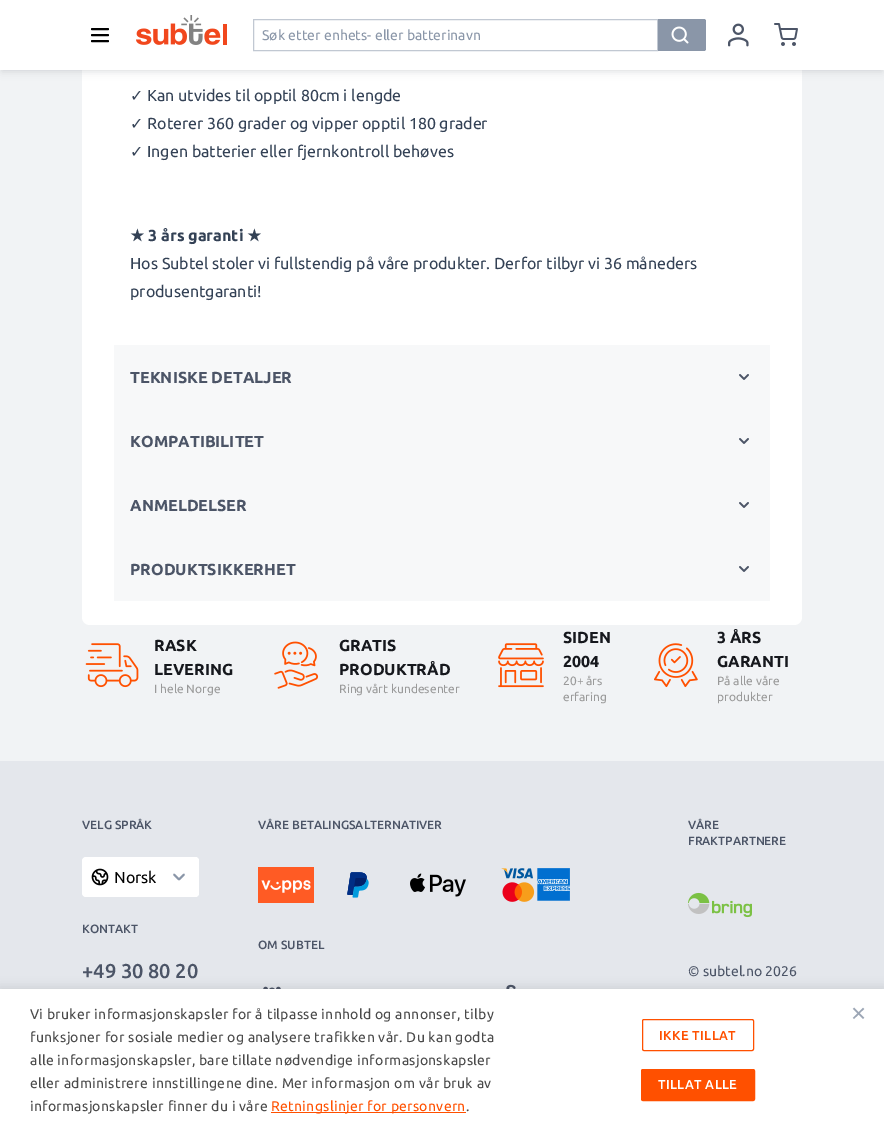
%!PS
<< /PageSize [884 1132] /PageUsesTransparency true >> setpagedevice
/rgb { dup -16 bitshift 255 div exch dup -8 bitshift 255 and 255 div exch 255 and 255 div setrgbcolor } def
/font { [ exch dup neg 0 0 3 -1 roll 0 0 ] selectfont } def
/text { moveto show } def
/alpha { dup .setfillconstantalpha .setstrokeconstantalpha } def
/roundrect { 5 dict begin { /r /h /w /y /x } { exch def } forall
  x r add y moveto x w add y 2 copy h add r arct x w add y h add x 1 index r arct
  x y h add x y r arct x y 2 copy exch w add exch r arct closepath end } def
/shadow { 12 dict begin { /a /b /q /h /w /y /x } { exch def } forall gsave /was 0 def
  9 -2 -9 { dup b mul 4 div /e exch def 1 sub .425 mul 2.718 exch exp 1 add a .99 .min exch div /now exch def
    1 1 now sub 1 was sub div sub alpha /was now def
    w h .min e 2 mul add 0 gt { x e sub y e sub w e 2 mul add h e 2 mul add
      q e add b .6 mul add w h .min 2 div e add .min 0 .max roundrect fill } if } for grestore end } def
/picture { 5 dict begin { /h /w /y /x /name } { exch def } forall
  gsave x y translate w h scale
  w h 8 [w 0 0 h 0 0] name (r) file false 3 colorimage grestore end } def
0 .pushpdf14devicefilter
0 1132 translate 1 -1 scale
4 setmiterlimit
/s1 { /Ubuntu-Regular 14 font 16#8A96A8 rgb } def
/s2 { /DejaVuSans-Regular 16 font 16#334155 rgb } def
/s3 { /Ubuntu-Regular 16 font 16#334155 rgb } def
/s4 { /DejaVuSans-Bold 16 font 16#334155 rgb } def
/s5 { /Ubuntu-Bold 16 font 16#334155 rgb } def
/s6 { /Ubuntu-Bold 16 font 16#4C5567 rgb } def
/s7 { /Ubuntu-Bold 16 font 16#16181D rgb } def
/s8 { /Ubuntu-Regular 12 font 16#9A9A9A rgb } def
/s9 { /Ubuntu-Medium 12 font 16#4C5567 rgb } def
/s10 { /Ubuntu-Regular 16 font 16#000000 rgb } def
/s11 { /Ubuntu-Medium 20 font 16#4C5567 rgb } def
/s12 { /Ubuntu-Regular 14 font 16#4C5567 rgb } def
/s13 { /LiberationSans-Regular 26 font 16#9CA6B5 rgb } def
16#F1F3F5 rgb
0 0 884 1132 rectfill
16#FFFFFF rgb
82 -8 moveto 802 -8 lineto 802 617 lineto 802 621.5 798.5 625 794 625 curveto 90 625 lineto 85.5 625 82 621.5 82 617 curveto closepath fill
16#101828 rgb
2 6 880 66 0 4 0.1 shadow
2 4 880 66 0 2 0.06 shadow
16#FFFFFF rgb
0 0 884 70 rectfill
16#000000 rgb
2 setlinewidth
1 setlinecap
1 setlinejoin
92 29 moveto 108 29 lineto 92 35 moveto 108 35 lineto 92 41 moveto 108 41 lineto stroke
(pic1.raw) 136 15 91 30 picture
16#C1C8D2 rgb
1 setlinewidth
0 setlinecap
0 setlinejoin
253.5 19.5 404 31 rectstroke
s1
(Søk etter enhets- eller batterinavn) 262 40 text
658 19 moveto 704 19 lineto 705 19 706 20 706 21 curveto 706 49 lineto 706 50 705 51 704 51 curveto 658 51 lineto closepath fill
(pic2.raw) 671 26 18 18 picture
(pic3.raw) 728 23 21 24 picture
(pic4.raw) 774 23 24 23 picture
s2
(✓) 130 101 text
s3
(Kan utvides til opptil 80cm i lengde) 147 101 text
s2
(✓) 130 129 text
s3
(Roterer 360 grader og vipper opptil 180 grader) 147 129 text
s2
(✓) 130 157 text
s3
(Ingen batterier eller fjernkontroll behøves) 147 157 text
s4
(★) 130 241 text
s5
(3 års garanti) 148 241 text
s4
(★) 247 241 text
s3
(Hos Subtel stoler vi fullstendig på våre produkter. Derfor tilbyr vi 36 måneders) 130 269 text
(produsentgaranti!) 130 297 text
16#F7F8F9 rgb
114 345 656 256 rectfill
s6
(TEKNISKE DETALJER) 130 383 text
(pic5.raw) 739 374 10 6 picture
(KOMPATIBILITET) 130 447 text
(pic5.raw) 739 438 10 6 picture
(ANMELDELSER) 130 511 text
(pic5.raw) 739 502 10 6 picture
(PRODUKTSIKKERHET) 130 575 text
(pic5.raw) 739 566 10 6 picture
(pic6.raw) 85 643 54 45 picture
s7
(RASK) 154 651 text
(LEVERING) 154 675 text
s8
(I hele Norge) 154 693 text
(pic7.raw) 274 641 45 48 picture
s7
(GRATIS) 339 651 text
(PRODUKTRÅD) 339 675 text
s8
(Ring vårt kundesenter) 339 693 text
(pic8.raw) 498 643 46 45 picture
s7
(SIDEN) 563 643 text
(2004) 563 667 text
s8
(20+ års) 563 685 text
(erfaring) 563 701 text
(pic9.raw) 654 643 44 45 picture
s7
(3 ÅRS) 717 643 text
(GARANTI) 717 667 text
s8
(På alle våre) 717 685 text
(produkter) 717 701 text
16#E4E7EC rgb
0 761 884 228 rectfill
s9
(VELG SPRÅK) 82 829 text
16#FFFFFF rgb
82 857 117 40 4 roundrect fill
(pic10.raw) 91 868 18 18 picture
110 857 89 40 4 roundrect fill
16#8A96A8 rgb
1.8 setlinewidth
1 setlinecap
1 setlinejoin
174 874.5 moveto 179 879.5 lineto 184 874.5 lineto stroke
s10
(Norsk) 114 883 text
s9
(KONTAKT) 82 933 text
s11
(+49 30 80 20) 82 978 text
s9
(VÅRE BETALINGSALTERNATIVER) 258 829 text
(pic11.raw) 258 867 56 36 picture
(pic12.raw) 347 872 22 26 picture
(pic13.raw) 410 873 56 24 picture
(pic14.raw) 501 868 69 34 picture
(OM SUBTEL) 258 949 text
(pic15.raw) 263 986 18 3 picture
(pic16.raw) 506 984 10 5 picture
(VÅRE) 688 829 text
(FRAKTPARTNERE) 688 845 text
(pic17.raw) 688 892 64 26 picture
s12
(© subtel.no 2026) 688 976 text
16#000000 rgb
0 987 884 143 0 5 0.1 shadow
16#FFFFFF rgb
0 989 884 143 rectfill
16#4A4A4A rgb
30 1019 moveto 0.3 0 (Vi bruker informasjonskapsler for å tilpasse innhold og annonser, tilby) ashow
30 1042 moveto 0.3 0 (funksjoner for sosiale medier og analysere trafikken vår. Du kan godta) ashow
30 1065 moveto 0.3 0 (alle informasjonskapsler, bare tillate nødvendige informasjonskapsler) ashow
30 1088 moveto 0.3 0 (eller administrere innstillingene dine. Mer informasjon om vår bruk av) ashow
30 1111 moveto 0.3 0 (informasjonskapsler finner du i våre) ashow
16#FF5000 rgb
271 1112 195 1 rectfill
271 1111 moveto 0.3 0 (Retningslinjer for personvern) ashow
16#4A4A4A rgb
466 1111 moveto 0.3 0 (.) ashow
16#FF5000 rgb
1 setlinewidth
0 setlinecap
0 setlinejoin
642.5 1019.5 111 31 1.5 roundrect stroke
/Ubuntu-Medium 13 font
659 1040 moveto 0.4 0 (IKKE TILLAT) ashow
641.5 1069.5 113 31 1.5 roundrect gsave fill grestore
stroke
16#FFFFFF rgb
658 1089 moveto 0.4 0 (TILLAT ALLE) ashow
s13
(×) 851 1022 text
.poppdf14devicefilter showpage
